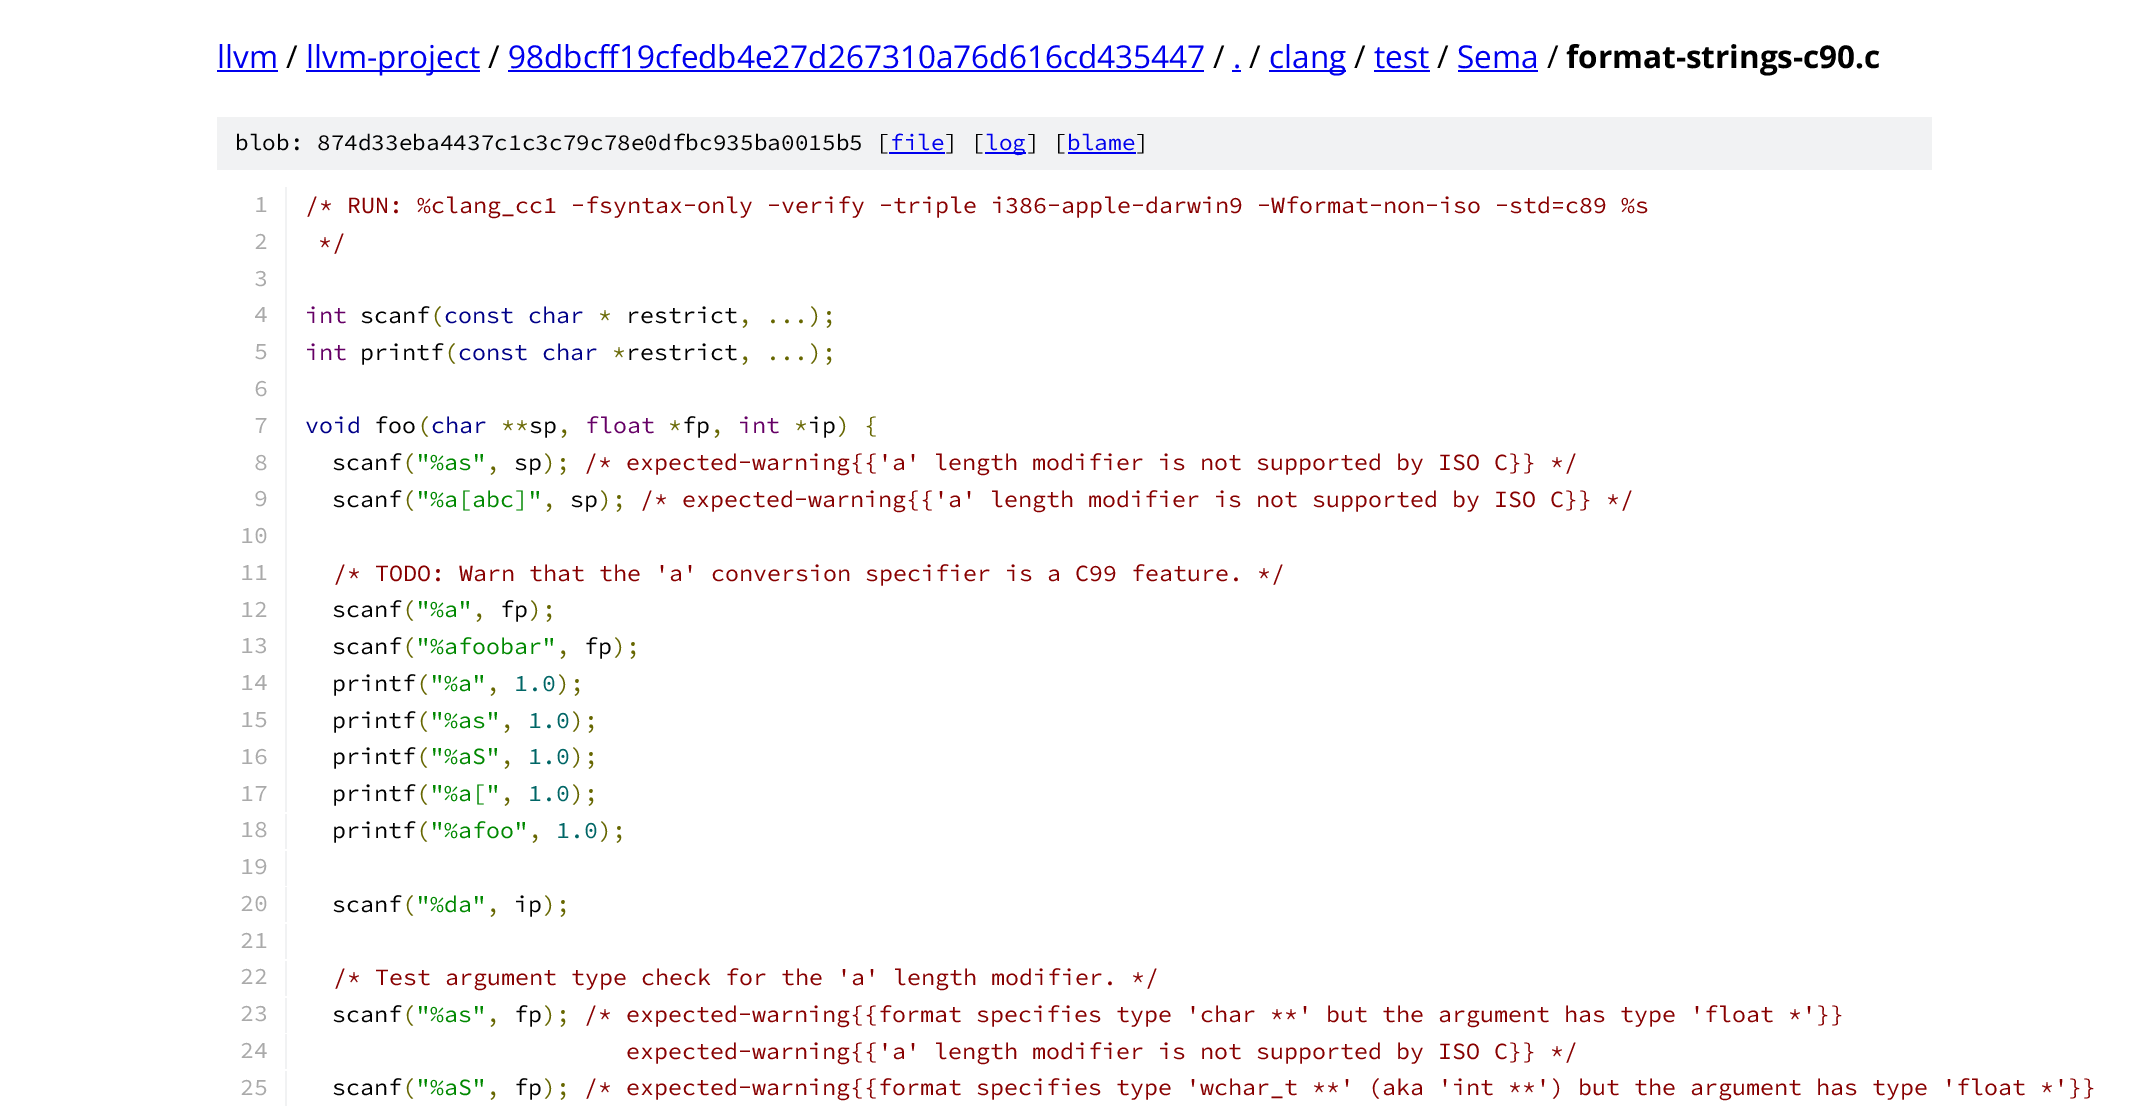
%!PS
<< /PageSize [2148 1106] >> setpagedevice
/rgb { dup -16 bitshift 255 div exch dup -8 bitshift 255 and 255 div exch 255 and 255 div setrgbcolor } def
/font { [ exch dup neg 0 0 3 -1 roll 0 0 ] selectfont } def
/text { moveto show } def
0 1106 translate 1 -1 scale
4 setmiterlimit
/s1 { /OpenSans-Regular 31.5 font 16#0000EE rgb } def
/s2 { /OpenSans-Regular 31.5 font 16#000000 rgb } def
/s3 { /OpenSans-Bold 31.5 font 16#000000 rgb } def
/s4 { /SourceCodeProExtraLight-ExtraLight 22.75 font 16#000000 rgb } def
/s5 { /SourceCodeProExtraLight-ExtraLight 22.75 font 16#0000EE rgb } def
/s6 { /SourceCodeProExtraLight-ExtraLight 23.33 font 16#AAAAAA rgb } def
/s7 { /SourceCodeProExtraLight-ExtraLight 23.33 font 16#880000 rgb } def
/s8 { /SourceCodeProExtraLight-ExtraLight 23.33 font 16#660066 rgb } def
/s9 { /SourceCodeProExtraLight-ExtraLight 23.33 font 16#000000 rgb } def
/s10 { /SourceCodeProExtraLight-ExtraLight 23.33 font 16#666600 rgb } def
/s11 { /SourceCodeProExtraLight-ExtraLight 23.33 font 16#000088 rgb } def
/s12 { /SourceCodeProExtraLight-ExtraLight 23.33 font 16#008800 rgb } def
/s13 { /SourceCodeProExtraLight-ExtraLight 23.33 font 16#006666 rgb } def
16#FFFFFF rgb
0 0 2148 1106 rectfill
s1
(llvm) 217 68 text
217 70 61 2 rectfill
s2
(/) 286 68 text
16#0000EE rgb
306 70 174 2 rectfill
(llvm-project) 306 68 text
s2
(/) 488 68 text
s1
(98dbcff19cfedb4e27d267310a76d616cd435447) 508 68 text
508 70 696 2 rectfill
s2
(/) 1213 68 text
s1
(.) 1233 68 text
1232 70 9 2 rectfill
s2
(/) 1249 68 text
16#0000EE rgb
1269 70 77 2 rectfill
(clang) 1269 68 text
s2
(/) 1354 68 text
s1
(test) 1374 68 text
1374 70 56 2 rectfill
s2
(/) 1437 68 text
s1
(Sema) 1457 68 text
1458 70 80 2 rectfill
s2
(/) 1547 68 text
s3
(format-strings-c90.c) 1566 68 text
16#F1F2F3 rgb
217 117 1715 53 rectfill
s4
(blob: 874d33eba4437c1c3c79c78e0dfbc935ba0015b5 [) 235 150 text
s5
(file) 890 150 text
889 152 56 2 rectfill
s4
(] [) 944 150 text
16#0000EE rgb
985 152 41 2 rectfill
(log) 985 150 text
s4
(] [) 1026 150 text
s5
(blame) 1067 150 text
1068 152 68 2 rectfill
s4
(]) 1135 150 text
16#F1F2F3 rgb
285 187 2 625 rectfill
s6
(1) 254 212 text
s7
(/* RUN: %clang_cc1 -fsyntax-only -verify -triple i386-apple-darwin9 -Wformat-non-iso -std=c89 %s) 305 213 text
s6
(2) 254 249 text
s7
(*/) 318 250 text
s6
(3) 254 286 text
(4) 254 322 text
s8
(int) 305 323 text
s9
(scanf) 360 323 text
s10
(\() 430 323 text
s11
(const char) 444 323 text
s10
(*) 598 323 text
s9
(restrict) 626 323 text
s10
(, ...\);) 738 323 text
s6
(5) 254 359 text
s8
(int) 305 360 text
s9
(printf) 360 360 text
s10
(\() 444 360 text
s11
(const char) 458 360 text
s10
(*) 612 360 text
s9
(restrict) 626 360 text
s10
(, ...\);) 738 360 text
s6
(6) 254 396 text
(7) 254 433 text
s11
(void) 305 433 text
s9
(foo) 374 433 text
s10
(\() 417 433 text
s11
(char) 431 433 text
s10
(**) 501 433 text
s9
(sp) 529 433 text
s10
(,) 557 433 text
s8
(float) 585 433 text
s10
(*) 668 433 text
s9
(fp) 682 433 text
s10
(,) 710 433 text
s8
(int) 738 433 text
s10
(*) 794 433 text
s9
(ip) 808 433 text
s10
(\) {) 836 433 text
s6
(8) 254 470 text
s9
(scanf) 332 470 text
s10
(\() 402 470 text
s12
("%as") 416 470 text
s10
(,) 486 470 text
s9
(sp) 514 470 text
s10
(\);) 542 470 text
s7
(/* expected-warning{{'a' length modifier is not supported by ISO C}} */) 584 470 text
s6
(9) 254 506 text
s9
(scanf) 332 507 text
s10
(\() 402 507 text
s12
("%a[abc]") 416 507 text
s10
(,) 542 507 text
s9
(sp) 570 507 text
s10
(\);) 598 507 text
s7
(/* expected-warning{{'a' length modifier is not supported by ISO C}} */) 640 507 text
s6
(10) 240 543 text
(11) 240 580 text
s7
(/* TODO: Warn that the 'a' conversion specifier is a C99 feature. */) 333 581 text
s6
(12) 240 617 text
s9
(scanf) 332 617 text
s10
(\() 402 617 text
s12
("%a") 416 617 text
s10
(,) 472 617 text
s9
(fp) 500 617 text
s10
(\);) 528 617 text
s6
(13) 240 653 text
s9
(scanf) 332 654 text
s10
(\() 402 654 text
s12
("%afoobar") 416 654 text
s10
(,) 556 654 text
s9
(fp) 584 654 text
s10
(\);) 612 654 text
s6
(14) 240 690 text
s9
(printf) 332 691 text
s10
(\() 416 691 text
s12
("%a") 430 691 text
s10
(,) 486 691 text
s13
(1.0) 514 691 text
s10
(\);) 556 691 text
s6
(15) 240 727 text
s9
(printf) 332 728 text
s10
(\() 416 728 text
s12
("%as") 430 728 text
s10
(,) 500 728 text
s13
(1.0) 528 728 text
s10
(\);) 570 728 text
s6
(16) 240 764 text
s9
(printf) 332 764 text
s10
(\() 416 764 text
s12
("%aS") 430 764 text
s10
(,) 500 764 text
s13
(1.0) 528 764 text
s10
(\);) 570 764 text
s6
(17) 240 801 text
s9
(printf) 332 801 text
s10
(\() 416 801 text
s12
("%a[") 430 801 text
s10
(,) 500 801 text
s13
(1.0) 528 801 text
s10
(\);) 570 801 text
16#F1F2F3 rgb
285 814 2 35 rectfill
s6
(18) 240 837 text
s9
(printf) 332 838 text
s10
(\() 416 838 text
s12
("%afoo") 430 838 text
s10
(,) 528 838 text
s13
(1.0) 556 838 text
s10
(\);) 598 838 text
16#F1F2F3 rgb
285 851 2 35 rectfill
s6
(19) 240 874 text
16#F1F2F3 rgb
285 887 2 35 rectfill
s6
(20) 240 911 text
s9
(scanf) 332 912 text
s10
(\() 402 912 text
s12
("%da") 416 912 text
s10
(,) 486 912 text
s9
(ip) 514 912 text
s10
(\);) 542 912 text
16#F1F2F3 rgb
285 924 2 35 rectfill
s6
(21) 240 948 text
16#F1F2F3 rgb
285 961 2 35 rectfill
s6
(22) 240 984 text
s7
(/* Test argument type check for the 'a' length modifier. */) 333 985 text
16#F1F2F3 rgb
285 998 2 35 rectfill
s6
(23) 240 1021 text
s9
(scanf) 332 1022 text
s10
(\() 402 1022 text
s12
("%as") 416 1022 text
s10
(,) 486 1022 text
s9
(fp) 514 1022 text
s10
(\);) 542 1022 text
s7
(/* expected-warning{{format specifies type 'char **' but the argument has type 'float *'}}) 584 1022 text
16#F1F2F3 rgb
285 1034 2 35 rectfill
s6
(24) 240 1058 text
s7
(expected-warning{{'a' length modifier is not supported by ISO C}} */) 626 1059 text
16#F1F2F3 rgb
285 1071 2 35 rectfill
s6
(25) 240 1095 text
s9
(scanf) 332 1095 text
s10
(\() 402 1095 text
s12
("%aS") 416 1095 text
s10
(,) 486 1095 text
s9
(fp) 514 1095 text
s10
(\);) 542 1095 text
s7
(/* expected-warning{{format specifies type 'wchar_t **' \(aka 'int **'\) but the argument has type 'float *'}}) 584 1095 text
showpage
